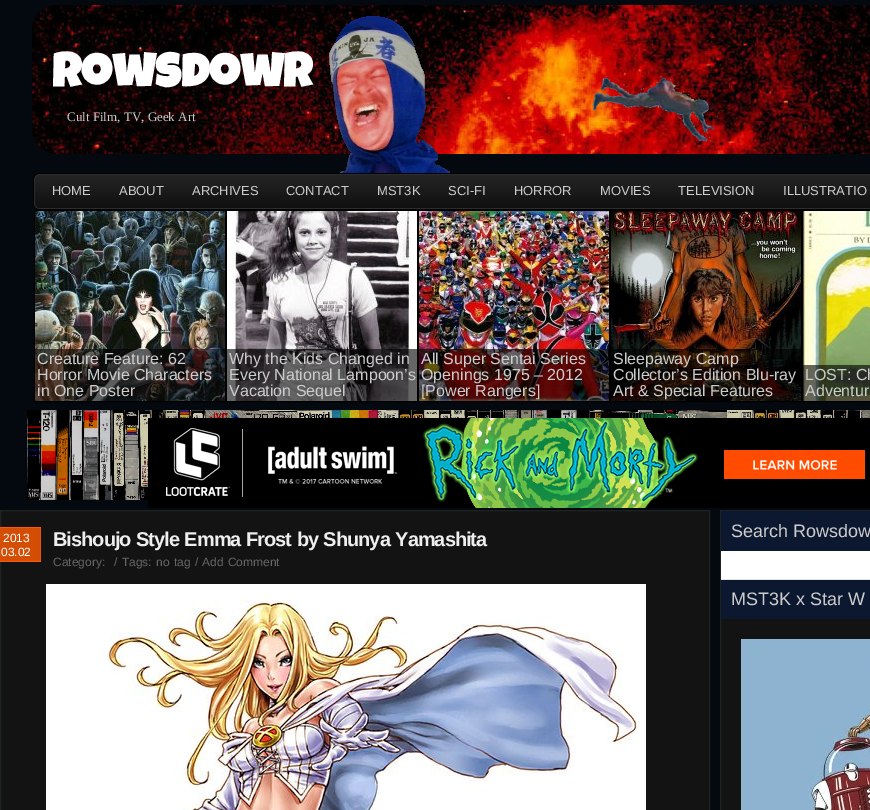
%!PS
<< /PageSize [870 810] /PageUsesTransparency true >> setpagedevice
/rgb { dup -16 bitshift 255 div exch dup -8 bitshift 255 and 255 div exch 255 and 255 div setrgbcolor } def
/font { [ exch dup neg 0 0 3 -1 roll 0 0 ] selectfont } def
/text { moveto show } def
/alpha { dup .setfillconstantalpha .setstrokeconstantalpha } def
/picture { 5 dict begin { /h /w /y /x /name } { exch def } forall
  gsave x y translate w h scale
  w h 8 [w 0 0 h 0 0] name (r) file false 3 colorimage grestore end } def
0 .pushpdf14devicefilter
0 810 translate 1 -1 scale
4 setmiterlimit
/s1 { /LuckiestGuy-Bold 48 font 16#FFFFFF rgb } def
/s2 { /LiberationSerif-Regular 13 font 16#CCCCCC rgb } def
/s3 { /LiberationSans-Regular 13 font 16#CCCCCC rgb } def
/s4 { /LiberationSans-Regular 16 font 16#CCCCCC rgb } def
/s5 { /LiberationSans-Regular 12 font 16#FFFFFF rgb } def
/s6 { /LiberationSans-Regular 12 font 16#666666 rgb } def
/s7 { /LiberationSans-Regular 18 font 16#CCCCCC rgb } def
16#04080F rgb
0 0 870 810 rectfill
(pic1.raw) 32 5 838 149 picture
(pic2.raw) 329 16 121 157 picture
s1
(Rowsdowr) 52 87 text
s2
(Cult Film, TV, Geek Art) 67 121 text
(pic3.raw) 33 173 837 37 picture
s3
(HOME) 52 195 text
(ABOUT) 119 195 text
(ARCHIVES) 192 195 text
(CONTACT) 286 195 text
(MST3K) 377 195 text
(SCI-FI) 448 195 text
(HORROR) 514 195 text
(MOVIES) 600 195 text
(TELEVISION) 678 195 text
(ILLUSTRATIO) 783 195 text
16#000000 rgb
34.5 210.5 191 191 rectstroke
(pic4.raw) 35 211 190 190 picture
0.6 alpha
35 349 190 52 rectfill
1 alpha
s4
(Creature Feature: 62) 37 364 text
(Horror Movie Characters) 37 380 text
(in One Poster) 37 396 text
16#000000 rgb
226.5 210.5 191 191 rectstroke
(pic5.raw) 227 211 190 190 picture
0.6 alpha
227 349 190 52 rectfill
1 alpha
s4
(Why the Kids Changed in) 229 364 text
(Every National Lampoon’s) 229 380 text
(Vacation Sequel) 229 396 text
16#000000 rgb
418.5 210.5 191 191 rectstroke
(pic6.raw) 419 211 190 190 picture
0.6 alpha
419 349 190 52 rectfill
1 alpha
s4
(All Super Sentai Series) 421 364 text
(Openings 1975 – 2012) 421 380 text
([Power Rangers]) 421 396 text
16#000000 rgb
610.5 210.5 191 191 rectstroke
(pic7.raw) 611 211 190 190 picture
0.6 alpha
611 349 190 52 rectfill
1 alpha
s4
(Sleepaway Camp) 613 364 text
(Collector’s Edition Blu-ray) 613 380 text
(Art & Special Features) 613 396 text
16#000000 rgb
802.5 210.5 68 191 rectstroke
(pic8.raw) 803 211 67 190 picture
0.6 alpha
803 365 67 36 rectfill
1 alpha
s4
(LOST: Ch) 805 380 text
(Adventur) 805 396 text
(pic9.raw) 27 410 843 90 picture
(pic10.raw) 148 418 722 90 picture
16#131313 rgb
0.5 510.5 moveto 709.5 510.5 lineto 709.5 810.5 lineto 0.5 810.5 lineto closepath gsave fill grestore
16#1F2223 rgb
stroke
(pic11.raw) 0 527 41 35 picture
s5
(2013) 3 542 text
(03.02) 1 556 text
/LiberationSans-Bold 20 font
16#EEEEEE rgb
53 546 moveto 1 0 32 -1 0 (Bishoujo Style Emma Frost by Shunya Yamashita) awidthshow
s6
(Category:) 53 566 text
114 566 moveto 1 0 32 (/ Tags: no tag /) widthshow
202 566 moveto 1 0 32 (Add Comment) widthshow
(pic12.raw) 46 584 600 226 picture
16#131313 rgb
721 619 149 191 rectfill
16#1F2223 rgb
720.5 510.5 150 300 rectstroke
16#0C182F rgb
721 511 149 40 rectfill
s7
(Search Rowsdow) 731 537 text
16#E4E4E4 rgb
721 579 149 1 rectfill
16#FFFFFF rgb
721 551 149 28 rectfill
16#0C182F rgb
721 580 149 39 rectfill
s7
(MST3K x Star W) 731 605 text
(pic13.raw) 741 639 129 171 picture
.poppdf14devicefilter showpage
